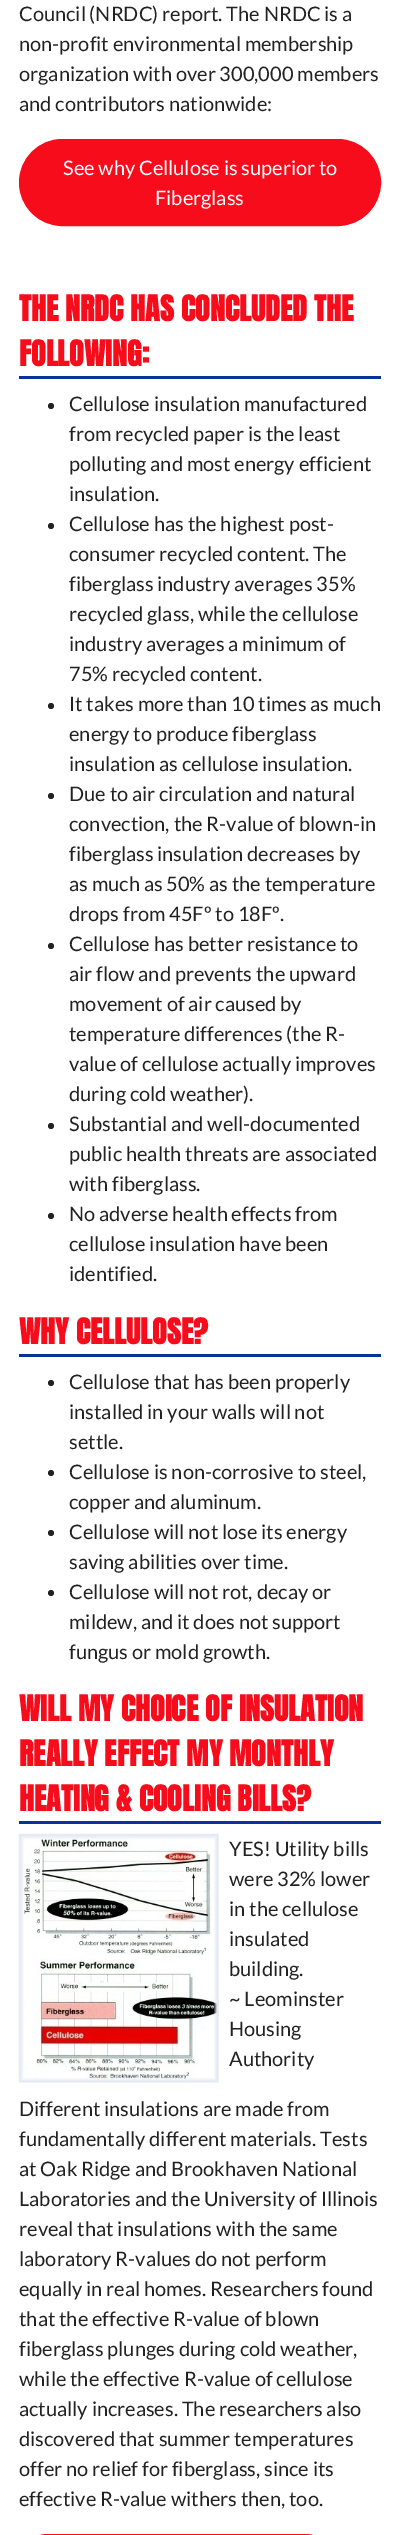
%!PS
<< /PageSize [400 2535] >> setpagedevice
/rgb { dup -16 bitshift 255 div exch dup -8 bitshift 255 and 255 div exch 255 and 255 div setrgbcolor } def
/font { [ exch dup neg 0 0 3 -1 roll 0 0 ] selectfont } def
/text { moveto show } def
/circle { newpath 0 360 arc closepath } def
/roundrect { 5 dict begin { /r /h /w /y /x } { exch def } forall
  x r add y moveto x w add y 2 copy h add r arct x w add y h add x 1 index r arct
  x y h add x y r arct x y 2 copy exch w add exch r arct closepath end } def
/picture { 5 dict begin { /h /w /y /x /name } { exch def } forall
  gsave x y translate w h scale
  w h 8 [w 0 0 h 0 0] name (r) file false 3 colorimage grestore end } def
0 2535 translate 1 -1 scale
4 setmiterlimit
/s1 { /Lato-Regular 20 font 16#222222 rgb } def
/s2 { /Lato-Regular 20 font 16#FFFFFF rgb } def
/s3 { /Anton-Bold 30 font 16#F60C1A rgb } def
16#FFFFFF rgb
0 0 400 2535 rectfill
s1
(Council \(NRDC\) report. The NRDC is a) 19 21 text
(non-profit environmental membership) 19 51 text
(organization with over 300,000 members) 19 81 text
(and contributors nationwide:) 19 111 text
16#F60C1A rgb
19.5 139.5 361 86 43 roundrect gsave fill grestore
stroke
s2
(See why Cellulose is superior to) 63 175 text
(Fiberglass) 155 205 text
16#053399 rgb
19 376 362 3 rectfill
s3
(THE NRDC HAS CONCLUDED THE) 19 321 text
(FOLLOWING:) 19 366 text
16#222222 rgb
51 406 3 circle fill
s1
(Cellulose insulation manufactured) 69 411 text
(from recycled paper is the least) 69 441 text
(polluting and most energy efficient) 69 471 text
(insulation.) 69 501 text
51 526 3 circle fill
(Cellulose has the highest post-) 69 531 text
(consumer recycled content. The) 69 561 text
(fiberglass industry averages 35%) 69 591 text
(recycled glass, while the cellulose) 69 621 text
(industry averages a minimum of) 69 651 text
(75% recycled content.) 69 681 text
51 706 3 circle fill
(It takes more than 10 times as much) 69 711 text
(energy to produce fiberglass) 69 741 text
(insulation as cellulose insulation.) 69 771 text
51 796 3 circle fill
(Due to air circulation and natural) 69 801 text
(convection, the R-value of blown-in) 69 831 text
(fiberglass insulation decreases by) 69 861 text
(as much as 50% as the temperature) 69 891 text
(drops from 45Fº to 18Fº.) 69 921 text
51 946 3 circle fill
(Cellulose has better resistance to) 69 951 text
(air flow and prevents the upward) 69 981 text
(movement of air caused by) 69 1011 text
(temperature differences \(the R-) 69 1041 text
(value of cellulose actually improves) 69 1071 text
(during cold weather\).) 69 1101 text
51 1126 3 circle fill
(Substantial and well-documented) 69 1131 text
(public health threats are associated) 69 1161 text
(with fiberglass.) 69 1191 text
51 1216 3 circle fill
(No adverse health effects from) 69 1221 text
(cellulose insulation have been) 69 1251 text
(identified.) 69 1281 text
16#053399 rgb
19 1354 362 3 rectfill
s3
(WHY CELLULOSE?) 19 1344 text
16#222222 rgb
51 1383 3 circle fill
s1
(Cellulose that has been properly) 69 1389 text
(installed in your walls will not) 69 1419 text
(settle.) 69 1449 text
51 1473 3 circle fill
(Cellulose is non-corrosive to steel,) 69 1479 text
(copper and aluminum.) 69 1509 text
51 1533 3 circle fill
(Cellulose will not lose its energy) 69 1539 text
(saving abilities over time.) 69 1569 text
51 1593 3 circle fill
(Cellulose will not rot, decay or) 69 1599 text
(mildew, and it does not support) 69 1629 text
(fungus or mold growth.) 69 1659 text
16#053399 rgb
19 1821 362 3 rectfill
s3
(WILL MY CHOICE OF INSULATION) 19 1721 text
(REALLY EFFECT MY MONTHLY) 19 1766 text
(HEATING & COOLING BILLS?) 19 1811 text
(pic1.raw) 18 1833 201 250 picture
s1
(YES! Utility bills) 229 1856 text
(were 32% lower) 229 1886 text
(in the cellulose) 229 1916 text
(insulated) 229 1946 text
(building.) 229 1976 text
(~ Leominster) 229 2006 text
(Housing) 229 2036 text
(Authority) 229 2066 text
(Different insulations are made from) 19 2116 text
(fundamentally different materials. Tests) 19 2146 text
(at Oak Ridge and Brookhaven National) 19 2176 text
(Laboratories and the University of Illinois) 19 2206 text
(reveal that insulations with the same) 19 2236 text
(laboratory R-values do not perform) 19 2266 text
(equally in real homes. Researchers found) 19 2296 text
(that the effective R-value of blown) 19 2326 text
(fiberglass plunges during cold weather,) 19 2356 text
(while the effective R-value of cellulose) 19 2386 text
(actually increases. The researchers also) 19 2416 text
(discovered that summer temperatures) 19 2446 text
(offer no relief for fiberglass, since its) 19 2476 text
(effective R-value withers then, too.) 19 2506 text
16#F60C1A rgb
19.5 2534.5 314 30 28 roundrect stroke
showpage
